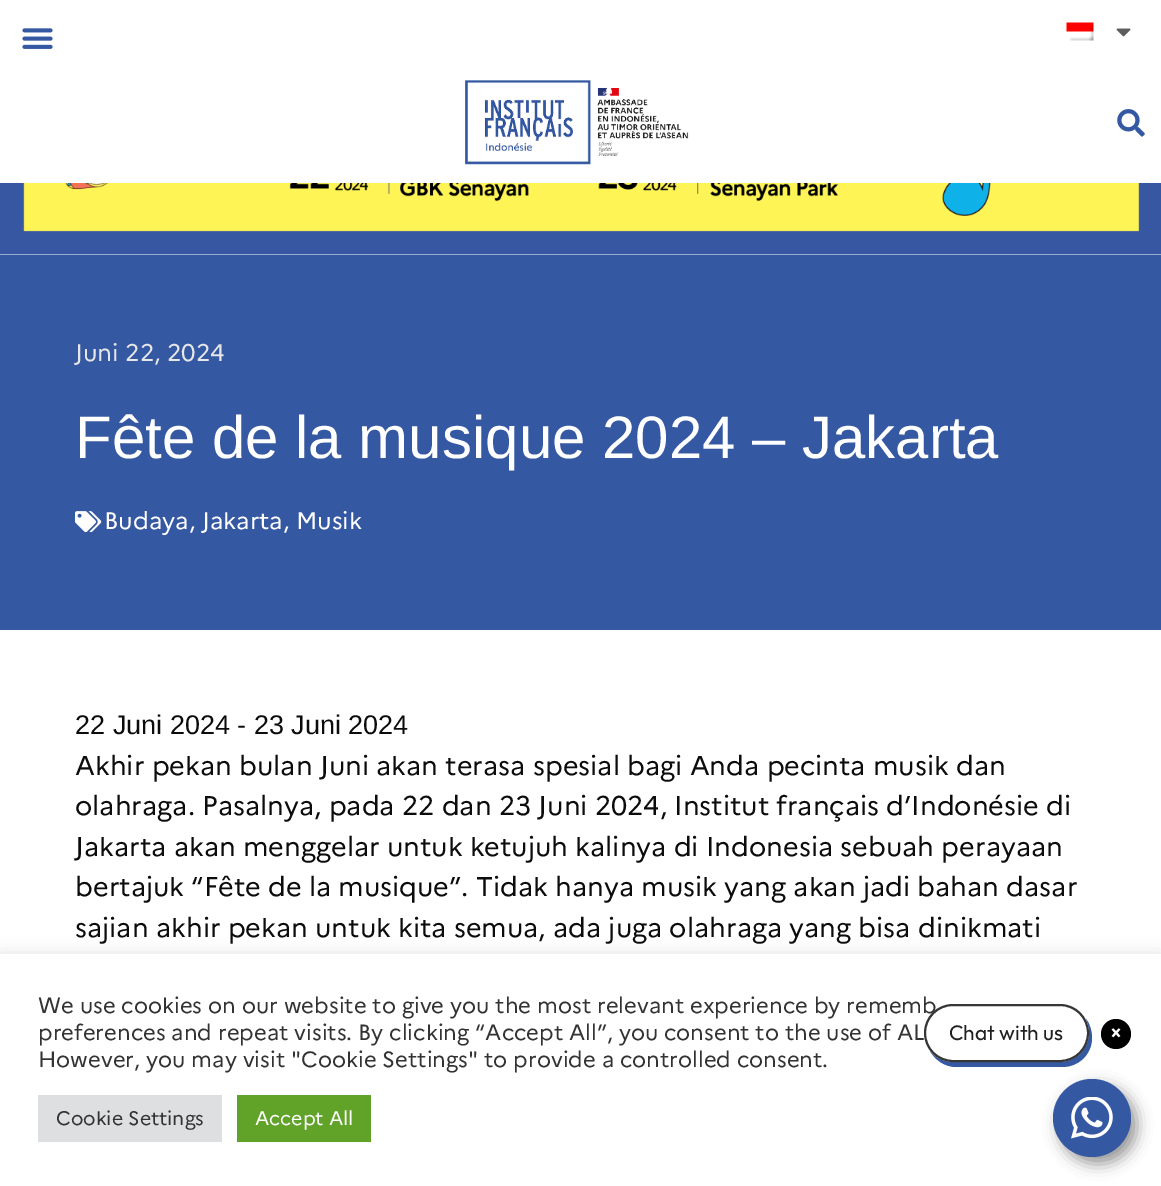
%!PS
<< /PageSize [1161 1186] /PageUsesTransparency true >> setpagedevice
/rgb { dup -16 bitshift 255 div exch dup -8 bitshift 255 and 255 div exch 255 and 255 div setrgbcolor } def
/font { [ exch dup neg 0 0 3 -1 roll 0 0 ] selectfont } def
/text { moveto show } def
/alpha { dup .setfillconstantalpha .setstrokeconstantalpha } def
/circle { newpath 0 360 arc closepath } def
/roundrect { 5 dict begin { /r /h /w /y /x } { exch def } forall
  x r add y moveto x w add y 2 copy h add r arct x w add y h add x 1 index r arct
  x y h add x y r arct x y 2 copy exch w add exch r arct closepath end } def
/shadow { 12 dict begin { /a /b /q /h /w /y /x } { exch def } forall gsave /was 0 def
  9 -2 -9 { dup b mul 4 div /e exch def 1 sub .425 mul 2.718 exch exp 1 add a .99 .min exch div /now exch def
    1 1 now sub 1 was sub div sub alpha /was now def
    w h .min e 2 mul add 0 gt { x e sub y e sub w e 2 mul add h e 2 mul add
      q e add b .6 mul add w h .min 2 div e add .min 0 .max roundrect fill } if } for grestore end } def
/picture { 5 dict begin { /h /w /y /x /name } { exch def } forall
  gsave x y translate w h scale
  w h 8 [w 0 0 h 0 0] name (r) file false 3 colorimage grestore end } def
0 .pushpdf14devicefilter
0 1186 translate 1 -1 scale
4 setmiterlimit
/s1 { /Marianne-Regular 24 font 16#E7E7E7 rgb } def
/s2 { /LiberationSans-Regular 60 font 16#FFFFFF rgb } def
/s3 { /Marianne-Regular 24 font 16#FFFFFF rgb } def
/s4 { /LiberationSans-Regular 27 font 16#0C0C0C rgb } def
/s5 { /Marianne-Regular 27 font 16#0C0C0C rgb } def
/s6 { /Marianne-Regular 22 font 16#333333 rgb } def
/s7 { /Marianne-Regular 19.5 font 16#333333 rgb } def
/s8 { /Marianne-Regular 19.5 font 16#FFFFFF rgb } def
/s9 { /Outfit-Regular 21 font 16#202020 rgb } def
16#FFFFFF rgb
0 0 1161 1186 rectfill
(pic1.raw) 22 28 31 21 picture
(pic2.raw) 1066 22 28 19 picture
(pic3.raw) 1116 28 15 9 picture
(pic4.raw) 1117 109 28 28 picture
(pic5.raw) 465 80 224 85 picture
(pic6.raw) 0 183 1161 72 picture
16#3558A2 rgb
0 255 1161 375 rectfill
s1
(Juni 22, 2024) 75 361 text
s2
(Fête de la musique 2024 – Jakarta) 75 458 text
(pic7.raw) 75 511 27 22 picture
s3
(Budaya, Jakarta, Musik) 104 529 text
s4
(22 Juni 2024 - 23 Juni 2024) 75 734 text
s5
(Akhir pekan bulan Juni akan terasa spesial bagi Anda pecinta musik dan) 75 775 text
(olahraga. Pasalnya, pada 22 dan 23 Juni 2024, Institut français d’Indonésie di) 75 815 text
(Jakarta akan menggelar untuk ketujuh kalinya di Indonesia sebuah perayaan) 75 856 text
(bertajuk “Fête de la musique”. Tidak hanya musik yang akan jadi bahan dasar) 75 896 text
(sajian akhir pekan untuk kita semua, ada juga olahraga yang bisa dinikmati) 75 937 text
16#ACABAB rgb
0 953 1161 232 0 7.5 0.3 shadow
16#FFFFFF rgb
0 954 1161 232 rectfill
s6
(We use cookies on our website to give you the most relevant experience by rememb) 38 1013 text
(preferences and repeat visits. By clicking “Accept All”, you consent to the use of AL) 38 1040 text
(However, you may visit "Cookie Settings" to provide a controlled consent.) 38 1067 text
16#DEDFE0 rgb
38 1095 184 47 rectfill
s7
(Cookie Settings) 56 1125 text
16#61A229 rgb
237 1095 134 47 rectfill
s8
(Accept All) 255 1125 text
16#000000 rgb
1059 1086 78 78 39 7.5 0.4 shadow
16#3558A2 rgb
930 1051 moveto 935 1060 945 1067 956 1067 curveto 1062 1067 lineto 1079 1067 1092 1054 1092 1038 curveto 1092 1031 1090 1024 1086 1019 curveto 1088 1023 1089 1028 1089 1033 curveto 1089 1049 1076 1062 1060 1062 curveto 953 1062 lineto 944 1062 935 1058 930 1051 curveto closepath fill
16#FFFFFF rgb
925 1005 163 56 28 roundrect gsave fill grestore
16#363636 rgb
2 setlinewidth
stroke
s9
(Chat with us) 949 1040 text
16#000000 rgb
1116 1034 15 circle fill
16#FFFFFF rgb
1112.5 1029 moveto 1119.5 1036.5 lineto 1112.5 1036.5 moveto 1119.5 1029 lineto stroke
16#3558A2 rgb
1092 1118 39 circle fill
(pic8.raw) 1071 1097 42 42 picture
.poppdf14devicefilter showpage
